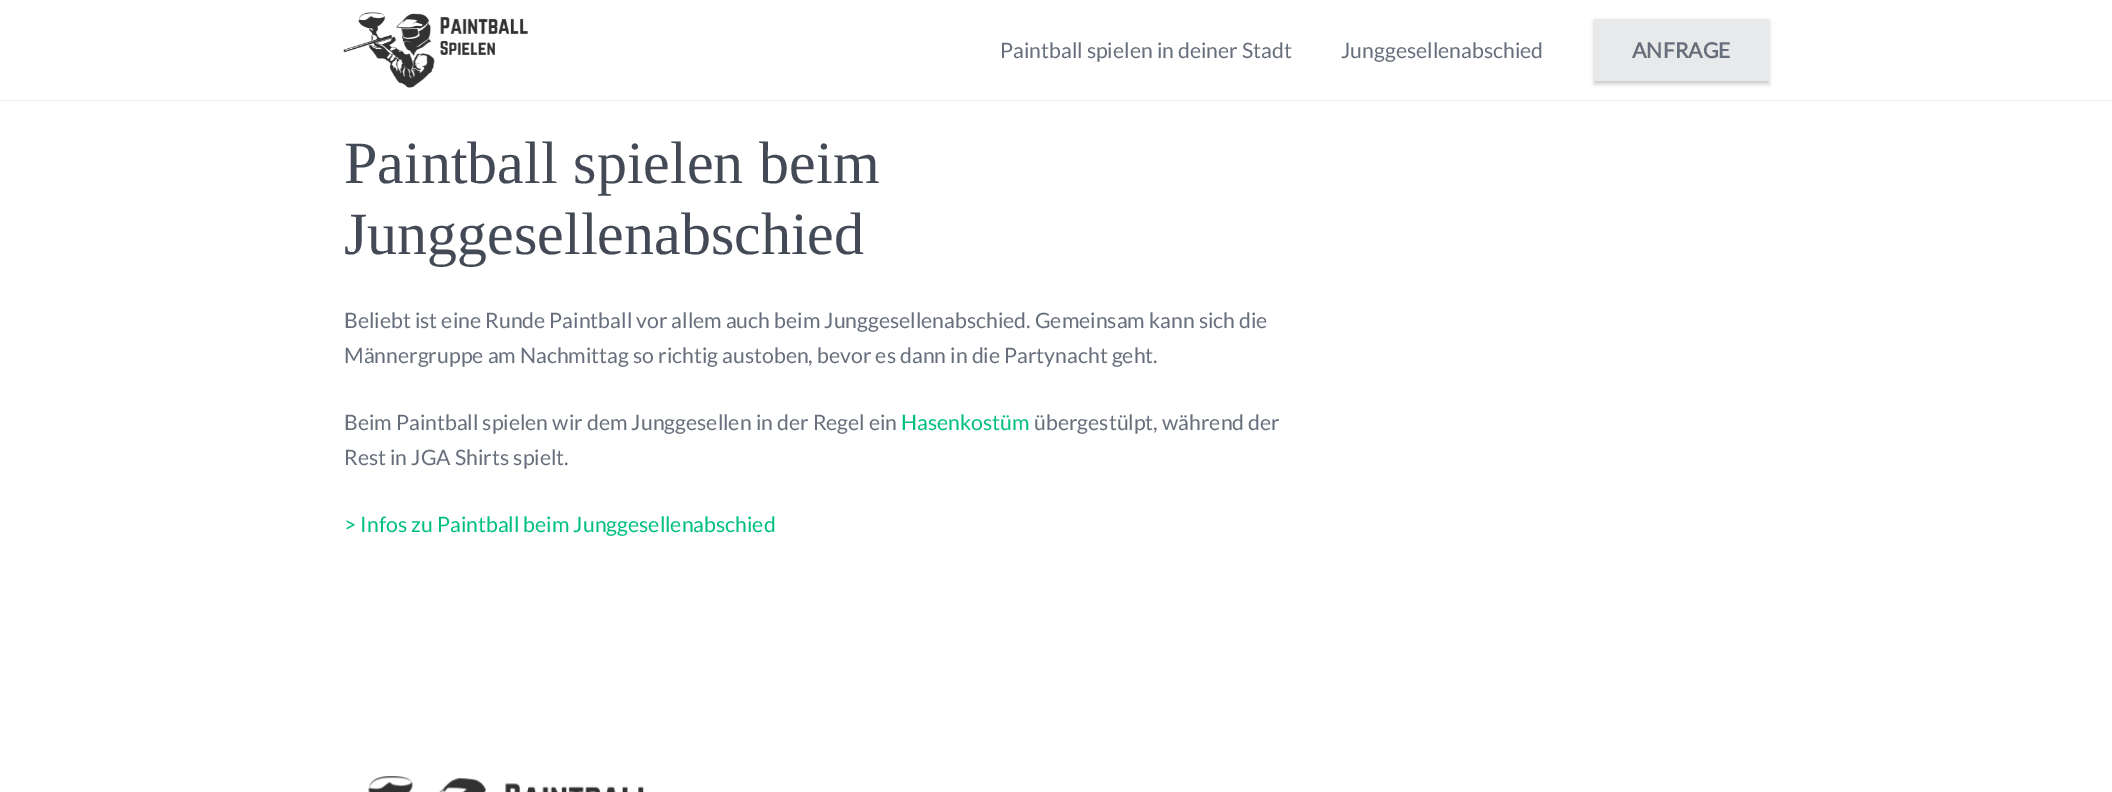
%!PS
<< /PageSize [2112 792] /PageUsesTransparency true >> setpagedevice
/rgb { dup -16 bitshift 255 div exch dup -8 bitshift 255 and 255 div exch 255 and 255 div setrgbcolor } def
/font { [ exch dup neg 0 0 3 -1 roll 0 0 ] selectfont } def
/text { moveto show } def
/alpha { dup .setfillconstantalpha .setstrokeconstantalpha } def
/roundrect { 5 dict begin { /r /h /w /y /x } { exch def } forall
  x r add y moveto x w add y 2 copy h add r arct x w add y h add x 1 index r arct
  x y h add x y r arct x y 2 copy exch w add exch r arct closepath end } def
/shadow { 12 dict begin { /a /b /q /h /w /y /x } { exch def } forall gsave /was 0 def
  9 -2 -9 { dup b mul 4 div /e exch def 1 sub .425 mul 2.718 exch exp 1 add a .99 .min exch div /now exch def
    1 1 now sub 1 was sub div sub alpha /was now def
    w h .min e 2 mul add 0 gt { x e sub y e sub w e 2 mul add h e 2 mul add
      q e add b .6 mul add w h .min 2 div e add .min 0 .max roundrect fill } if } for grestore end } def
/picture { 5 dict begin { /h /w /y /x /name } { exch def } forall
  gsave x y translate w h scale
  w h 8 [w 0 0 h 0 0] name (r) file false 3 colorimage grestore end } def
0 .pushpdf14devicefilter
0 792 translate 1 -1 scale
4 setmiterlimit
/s1 { /Lato-Regular 21.25 font 16#676F7C rgb } def
/s2 { /Lato-Bold 21.25 font 16#676F7C rgb } def
/s3 { /LiberationSerif-Regular 60 font 16#434955 rgb } def
/s4 { /Lato-Regular 21.25 font 16#00BF80 rgb } def
16#FFFFFF rgb
0 0 2112 792 rectfill
16#EBEBEB rgb
0 100 moveto 0 101 lineto 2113 101 lineto 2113 1 lineto 2112 1 lineto 2112 100 lineto closepath fill
(pic1.raw) 343 12 185 76 picture
s1
(Paintball spielen in deiner Stadt) 1000 58 text
(Junggesellenabschied) 1341 58 text
16#000000 rgb
1594 21 175 63 0.5 2 0.2 shadow
16#E8E9EB rgb
1594 19 175 62 0.5 roundrect fill
s2
(ANFRAGE) 1632 58 text
/LiberationSerif-Regular 60 font
16#434955 rgb
344 183 moveto 1 0 32 (Paintball spielen beim) widthshow
(Junggesellenabschied) 344 254 text
s1
(Beliebt ist eine Runde Paintball vor allem auch beim Junggesellenabschied. Gemeinsam kann sich die) 344 328 text
(Männergruppe am Nachmittag so richtig austoben, bevor es dann in die Partynacht geht.) 344 363 text
(Beim Paintball spielen wir dem Junggesellen in der Regel ein) 344 430 text
s4
(Hasenkostüm) 901 430 text
s1
(übergestülpt, während der) 1034 430 text
(Rest in JGA Shirts spielt.) 344 465 text
s4
(> Infos zu Paintball beim Junggesellenabschied) 344 532 text
(pic2.raw) 368 776 276 16 picture
.poppdf14devicefilter showpage
